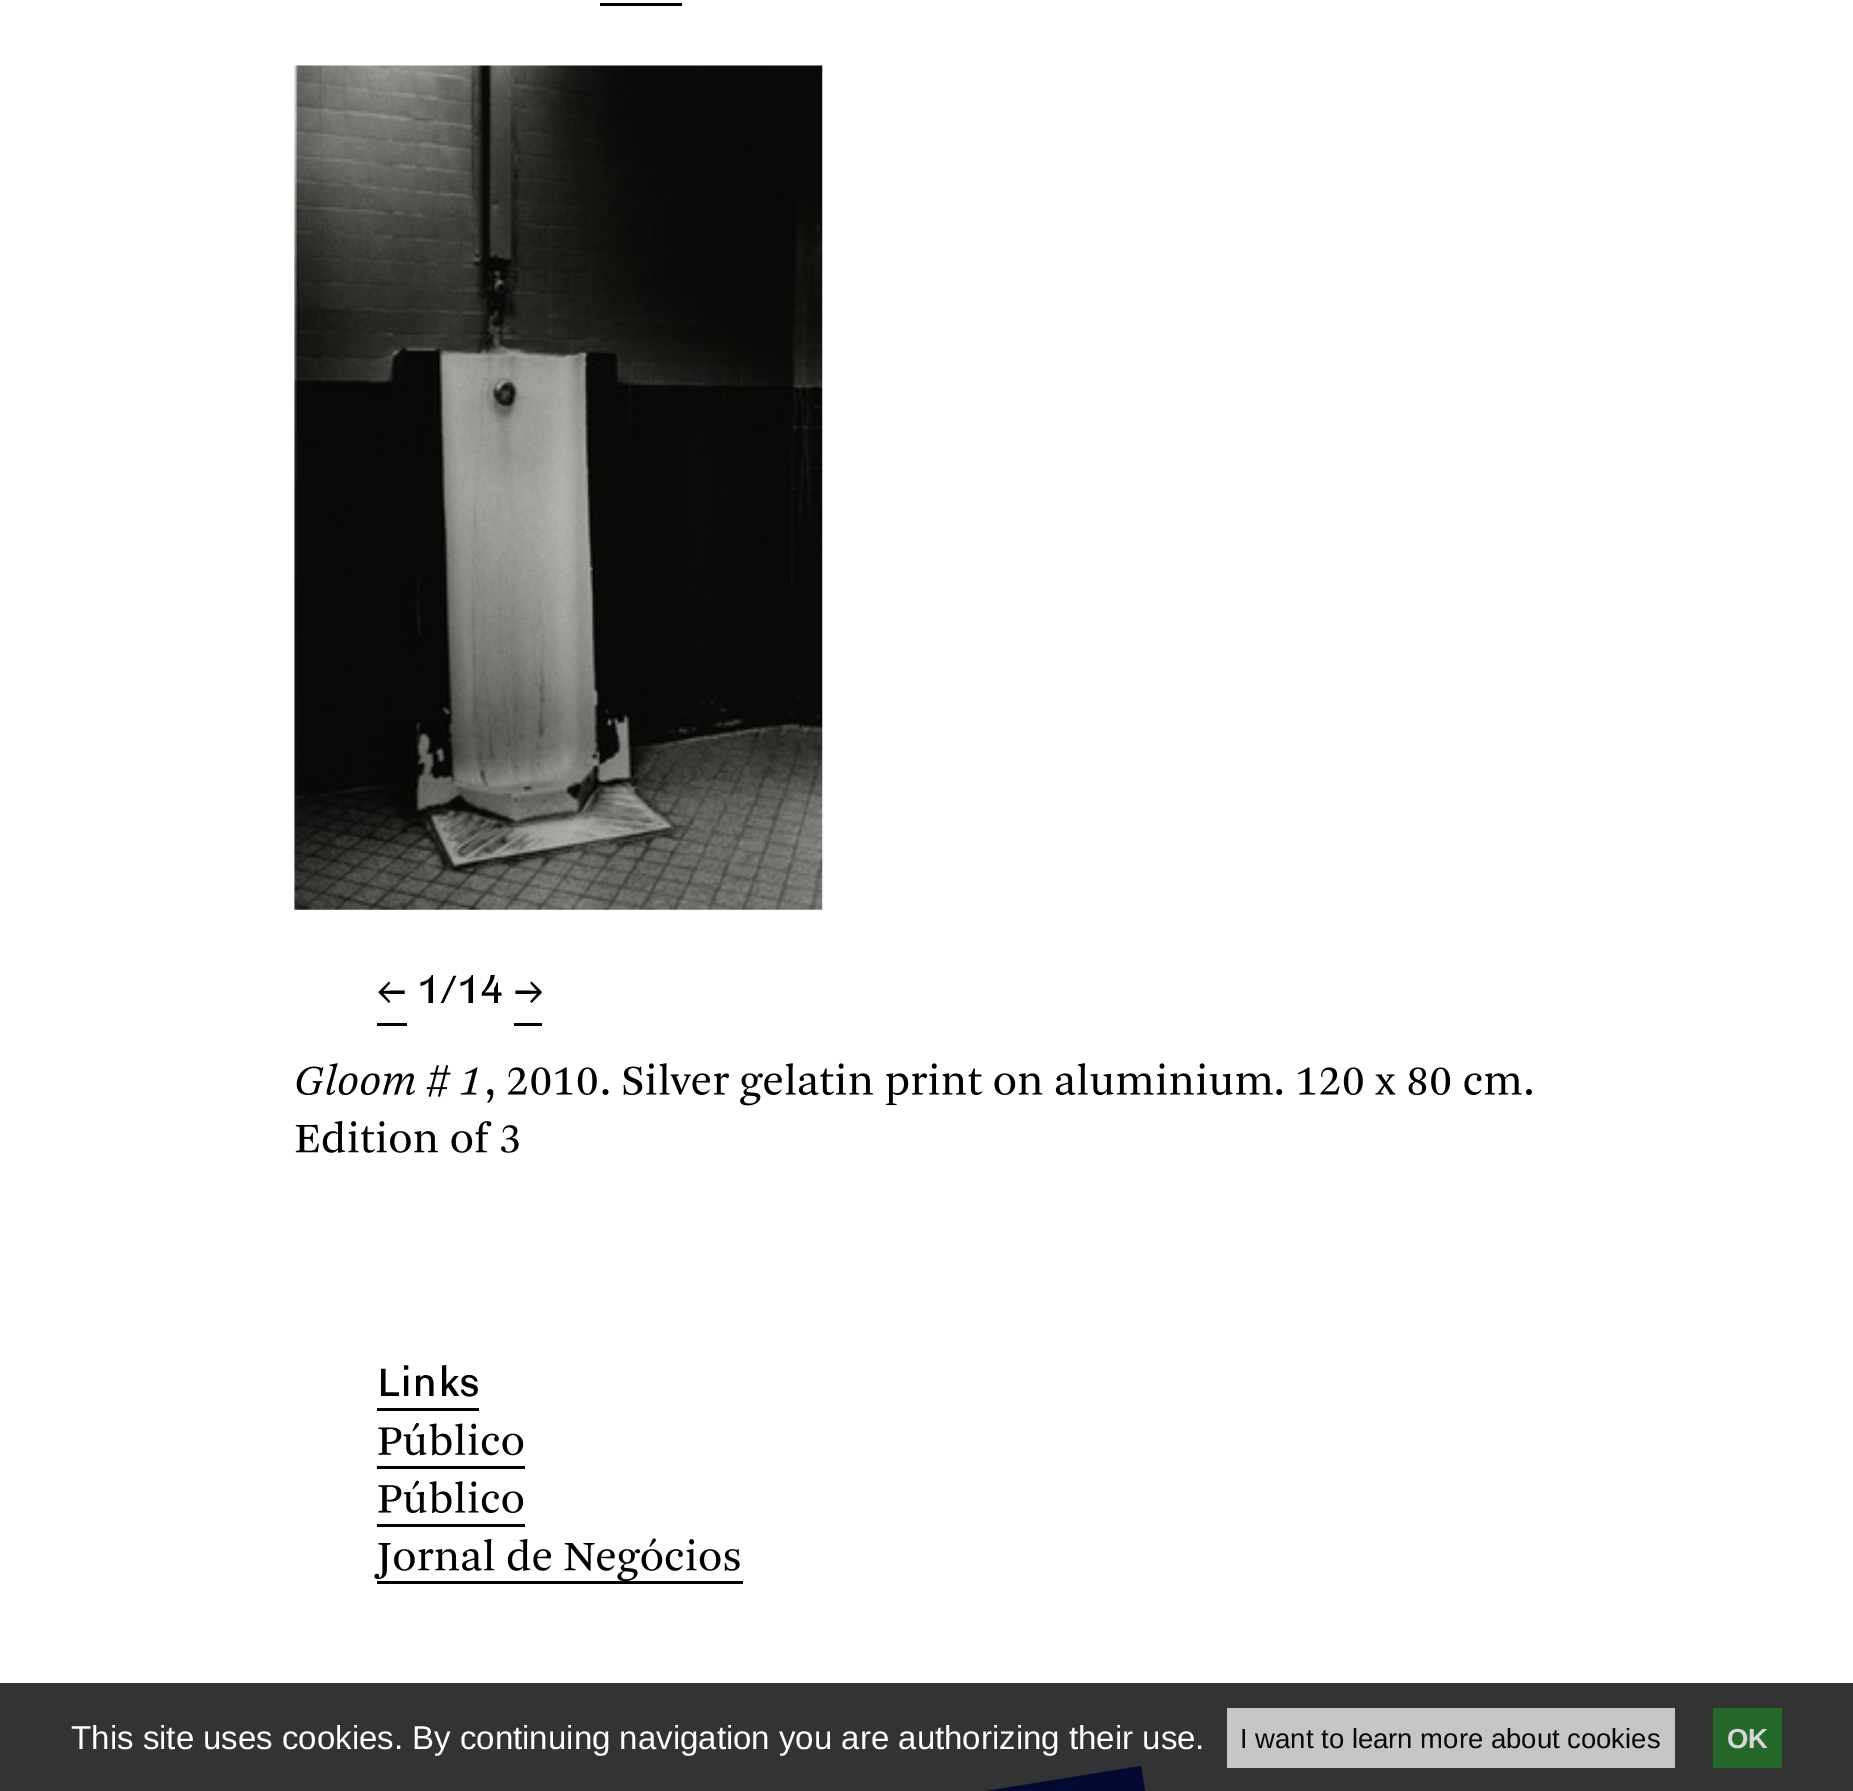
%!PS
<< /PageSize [1853 1791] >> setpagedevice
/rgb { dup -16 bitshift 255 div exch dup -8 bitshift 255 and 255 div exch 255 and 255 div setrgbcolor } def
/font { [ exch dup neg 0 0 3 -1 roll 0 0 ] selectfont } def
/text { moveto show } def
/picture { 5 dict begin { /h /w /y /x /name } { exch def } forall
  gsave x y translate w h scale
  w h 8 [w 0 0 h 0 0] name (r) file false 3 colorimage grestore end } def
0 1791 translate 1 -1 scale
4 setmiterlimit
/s1 { /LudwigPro-Regular 44 font 16#000000 rgb } def
/s2 { /LiberationSans-Regular 33 font 16#FFFFFF rgb } def
/s3 { /LiberationSans-Regular 27.5 font 16#0A0A0A rgb } def
/s4 { /LiberationSans-Bold 27.5 font 16#D6D6D6 rgb } def
16#FFFFFF rgb
0 0 1853 1791 rectfill
16#333333 rgb
0 1683 1853 108 rectfill
16#000000 rgb
600 3 82 3 rectfill
(pic1.raw) 294 65 529 845 picture
377 1023 30 3 rectfill
s1
(← 1/14 →) 377 1003 text
514 1023 28 3 rectfill
(pic2.raw) 296 1063 182 34 picture
(pic3.raw) 487 1089 7 14 picture
(pic4.raw) 507 1067 90 28 picture
(pic5.raw) 602 1089 7 6 picture
(pic6.raw) 623 1063 650 43 picture
(pic7.raw) 1276 1089 7 6 picture
(pic8.raw) 1298 1067 234 28 picture
(pic9.raw) 295 1121 224 32 picture
377 1408 102 3 rectfill
(Links) 377 1396 text
(pic10.raw) 378 1422 146 34 picture
377 1466 148 3 rectfill
(pic11.raw) 378 1480 146 33 picture
377 1524 148 3 rectfill
(pic12.raw) 374 1538 366 43 picture
377 1581 366 3 rectfill
16#020A33 rgb
632 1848 moveto 715 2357 lineto 1224 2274 lineto 1141 1766 lineto closepath fill
s2
(This site uses cookies. By continuing navigation you are authorizing their use.) 71 1749 text
16#C6C6C6 rgb
1227 1708 448 60 rectfill
s3
(I want to learn more about cookies) 1240 1748 text
16#246929 rgb
1713 1708 69 60 rectfill
s4
(OK) 1727 1748 text
showpage
